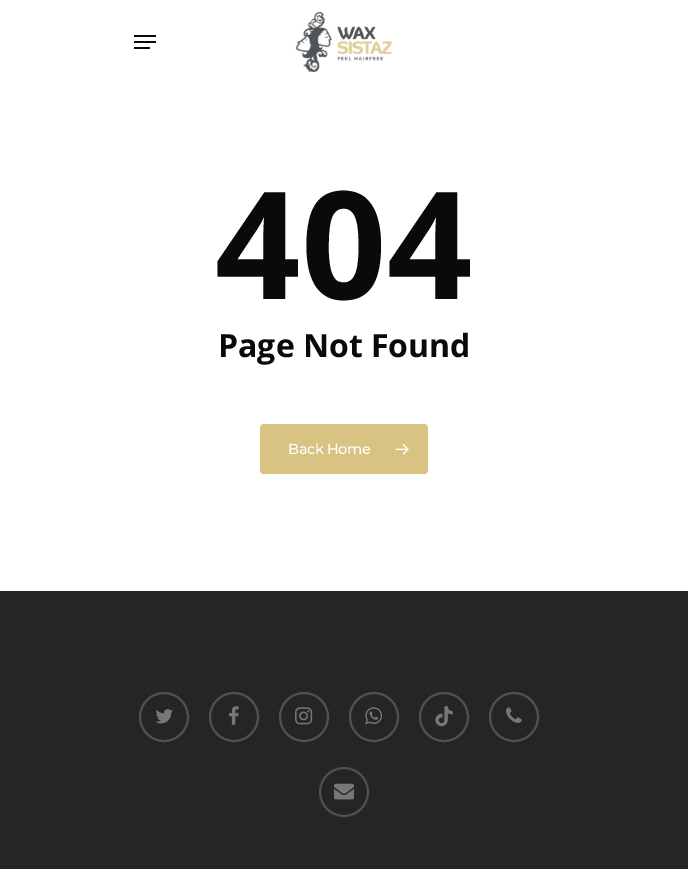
%!PS
<< /PageSize [688 869] >> setpagedevice
/rgb { dup -16 bitshift 255 div exch dup -8 bitshift 255 and 255 div exch 255 and 255 div setrgbcolor } def
/font { [ exch dup neg 0 0 3 -1 roll 0 0 ] selectfont } def
/text { moveto show } def
/circle { newpath 0 360 arc closepath } def
/roundrect { 5 dict begin { /r /h /w /y /x } { exch def } forall
  x r add y moveto x w add y 2 copy h add r arct x w add y h add x 1 index r arct
  x y h add x y r arct x y 2 copy exch w add exch r arct closepath end } def
/picture { 5 dict begin { /h /w /y /x /name } { exch def } forall
  gsave x y translate w h scale
  w h 8 [w 0 0 h 0 0] name (r) file false 3 colorimage grestore end } def
0 869 translate 1 -1 scale
4 setmiterlimit
/s1 { /OpenSans-Bold 150 font 16#0A0A0A rgb } def
/s2 { /OpenSans-Bold 32 font 16#0A0A0A rgb } def
/s3 { /Montserrat-Bold 14 font 16#FFFFFF rgb } def
16#FFFFFF rgb
0 0 688 869 rectfill
16#0A0A0A rgb
134 35 22 2 rectfill
134 47 16 2 rectfill
134 41 22 2 rectfill
(pic1.raw) 295 12 98 60 picture
s1
(404) 215 299 text
s2
(Page Not Found) 218 357 text
16#D9C382 rgb
260 424 168 50 4 roundrect fill
s3
(Back Home) 288 454 text
(pic2.raw) 395 444 14 11 picture
16#252525 rgb
0 591 688 278 rectfill
(pic3.raw) 155 709 18 15 picture
16#515151 rgb
2 setlinewidth
164 717 24 circle stroke
(pic4.raw) 229 706 10 19 picture
234 717 24 circle stroke
(pic5.raw) 295 707 18 18 picture
304 717 24 circle stroke
(pic6.raw) 365 707 18 18 picture
374 717 24 circle stroke
(pic7.raw) 435 706 18 21 picture
444 717 24 circle stroke
(pic8.raw) 506 707 16 16 picture
514 717 24 circle stroke
(pic9.raw) 334 783 20 17 picture
344 792 24 circle stroke
showpage
